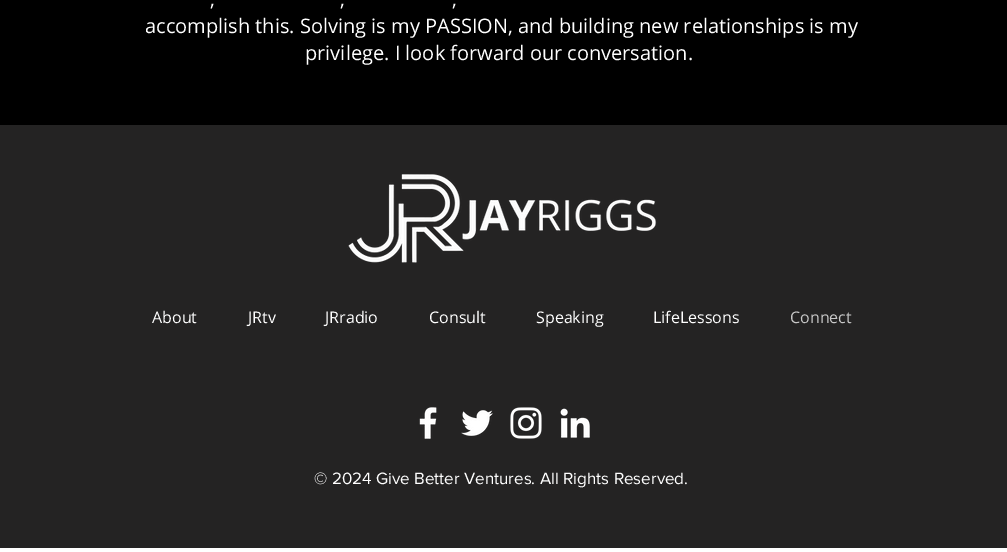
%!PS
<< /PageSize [1007 552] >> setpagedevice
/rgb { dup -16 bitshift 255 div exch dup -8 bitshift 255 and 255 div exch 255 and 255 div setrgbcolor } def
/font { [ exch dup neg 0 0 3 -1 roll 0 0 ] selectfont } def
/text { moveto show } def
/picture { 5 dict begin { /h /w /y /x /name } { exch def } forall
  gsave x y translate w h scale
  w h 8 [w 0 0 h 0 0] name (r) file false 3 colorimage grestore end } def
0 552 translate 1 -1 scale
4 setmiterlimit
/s1 { /OpenSans-Regular 20 font 16#FFFFFF rgb } def
/s2 { /OpenSans-Regular 16 font 16#FFFFFF rgb } def
/s3 { /OpenSans-Regular 16 font 16#C7C7C7 rgb } def
/s4 { /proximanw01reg-Regular 17 font 16#FFFFFF rgb } def
16#FFFFFF rgb
0 0 1007 552 rectfill
16#000000 rgb
0 0 1007 125 rectfill
s1
(,) 210 6 text
(,) 340 6 text
(,) 452 6 text
(accomplish this. Solving is my PASSION, and building new relationships is my) 145 33 text
(privilege. I look forward our conversation.) 305 60 text
16#242323 rgb
0 125 1007 423 rectfill
(pic1.raw) 347 174 310 89 picture
s2
(About) 152 323 text
(JRtv) 248 323 text
(JRradio) 325 323 text
(Consult) 429 323 text
(Speaking) 536 323 text
(LifeLessons) 653 323 text
s3
(Connect) 790 323 text
(pic2.raw) 419 407 18 32 picture
(pic3.raw) 461 410 32 26 picture
(pic4.raw) 510 407 32 32 picture
(pic5.raw) 560 408 30 30 picture
s4
(© 2024 Give Better Ventures. All Rights Reserved.) 314 484 text
showpage
